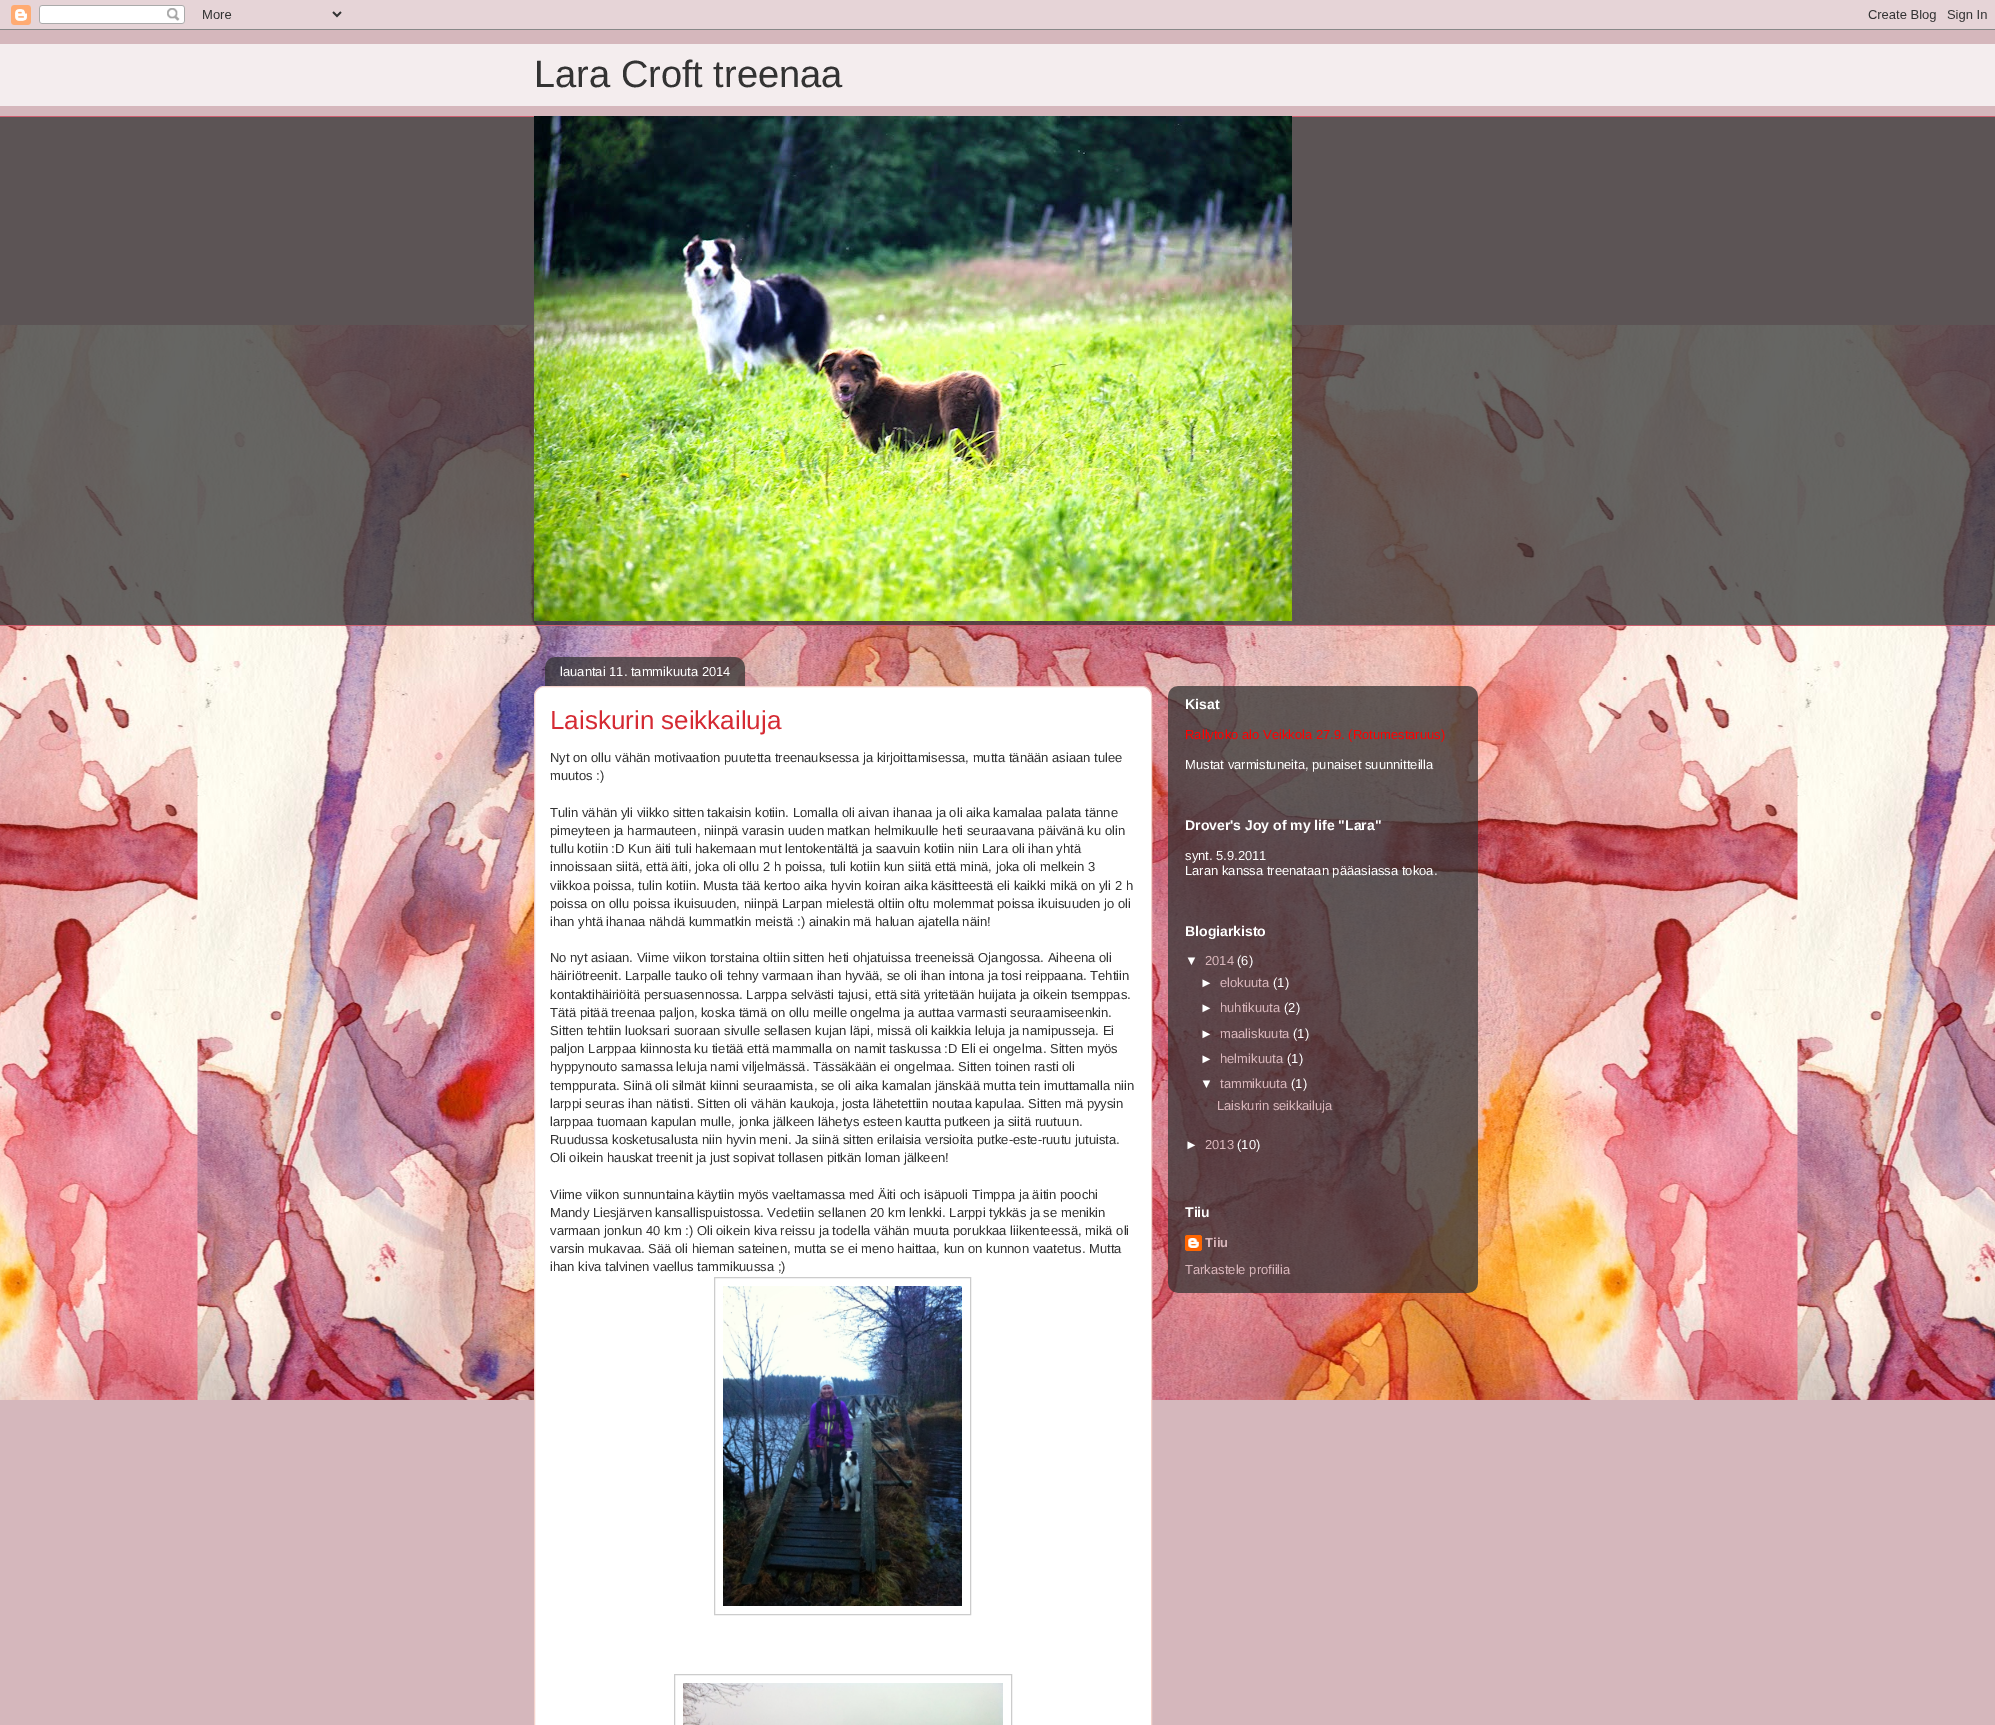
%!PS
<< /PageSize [1995 1725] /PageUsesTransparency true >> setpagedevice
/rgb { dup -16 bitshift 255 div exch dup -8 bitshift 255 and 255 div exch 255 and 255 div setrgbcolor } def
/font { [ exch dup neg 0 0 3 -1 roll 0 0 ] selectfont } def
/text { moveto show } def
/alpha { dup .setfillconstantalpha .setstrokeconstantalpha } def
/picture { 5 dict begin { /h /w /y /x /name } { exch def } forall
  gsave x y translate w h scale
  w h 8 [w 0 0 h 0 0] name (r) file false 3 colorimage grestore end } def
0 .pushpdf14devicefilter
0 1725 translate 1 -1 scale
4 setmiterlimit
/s1 { /LiberationSans-Regular 38 font 16#333333 rgb } def
/s2 { /LiberationSans-Regular 13 font 16#FFFFFF rgb } def
/s3 { /LiberationSans-Regular 26 font 16#D52A33 rgb } def
/s4 { /LiberationSans-Regular 13 font 16#333333 rgb } def
/s5 { /LiberationSans-Bold 14 font 16#FFFFFF rgb } def
/s6 { /LiberationSans-Regular 13 font 16#FF0000 rgb } def
/s7 { /LiberationSans-Regular 13 font 16#DAB7BC rgb } def
/s8 { /LiberationSans-Bold 13 font 16#DAB7BC rgb } def
16#D5B7BC rgb
0 0 1995 1725 rectfill
(pic1.raw) 0 325 1995 1075 picture
(pic2.raw) 0 0 1995 30 picture
16#F4EDEE rgb
0 44 1995 62 rectfill
s1
(Lara Croft treenaa) 534 87 text
0.75 alpha
0 117 1995 508 rectfill
1 alpha
16#CE5F70 rgb
0 116 1995 1 rectfill
(pic3.raw) 534 116 758 505 picture
0 625 1995 1 rectfill
16#FFFFFF rgb
544 686.5 moveto 1142 686.5 lineto 1147 686.5 1151.5 691 1151.5 696 curveto 1151.5 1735.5 lineto 534.5 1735.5 lineto 534.5 696 lineto 534.5 691 539 686.5 544 686.5 curveto closepath gsave fill grestore
16#F4D3CC rgb
stroke
(pic4.raw) 545 657 200 29 picture
s2
(lauantai 11. tammikuuta 2014) 560 676 text
s3
(Laiskurin seikkailuja) 550 729 text
s4
(Nyt on ollu vähän motivaation puutetta treenauksessa ja kirjoittamisessa, mutta tänään asiaan tulee) 550 762 text
(muutos :\)) 550 780 text
(Tulin vähän yli viikko sitten takaisin kotiin. Lomalla oli aivan ihanaa ja oli aika kamalaa palata tänne) 550 817 text
(pimeyteen ja harmauteen, niinpä varasin uuden matkan helmikuulle heti seuraavana päivänä ku olin) 550 835 text
(tullu kotiin :D Kun äiti tuli hakemaan mut lentokentältä ja saavuin kotiin niin Lara oli ihan yhtä) 550 853 text
(innoissaan siitä, että äiti, joka oli ollu 2 h poissa, tuli kotiin kun siitä että minä, joka oli melkein 3) 550 871 text
(viikkoa poissa, tulin kotiin. Musta tää kertoo aika hyvin koiran aika käsitteestä eli kaikki mikä on yli 2 h) 550 890 text
(poissa on ollu poissa ikuisuuden, niinpä Larpan mielestä oltiin oltu molemmat poissa ikuisuuden jo oli) 550 908 text
(ihan yhtä ihanaa nähdä kummatkin meistä :\) ainakin mä haluan ajatella näin!) 550 926 text
(No nyt asiaan. Viime viikon torstaina oltiin sitten heti ohjatuissa treeneissä Ojangossa. Aiheena oli) 550 962 text
(häiriötreenit. Larpalle tauko oli tehny varmaan ihan hyvää, se oli ihan intona ja tosi reippaana. Tehtiin) 550 980 text
(kontaktihäiriöitä persuasennossa. Larppa selvästi tajusi, että sitä yritetään huijata ja oikein tsemppas.) 550 999 text
(Tätä pitää treenaa paljon, koska tämä on ollu meille ongelma ja auttaa varmasti seuraamiseenkin.) 550 1017 text
(Sitten tehtiin luoksari suoraan sivulle sellasen kujan läpi, missä oli kaikkia leluja ja namipusseja. Ei) 550 1035 text
(paljon Larppaa kiinnosta ku tietää että mammalla on namit taskussa :D Eli ei ongelma. Sitten myös) 550 1053 text
(hyppynouto samassa leluja nami viljelmässä. Tässäkään ei ongelmaa. Sitten toinen rasti oli) 550 1071 text
(temppurata. Siinä oli silmät kiinni seuraamista, se oli aika kamalan jänskää mutta tein imuttamalla niin) 550 1090 text
(larppi seuras ihan nätisti. Sitten oli vähän kaukoja, josta lähetettiin noutaa kapulaa. Sitten mä pyysin) 550 1108 text
(larppaa tuomaan kapulan mulle, jonka jälkeen lähetys esteen kautta putkeen ja siitä ruutuun.) 550 1126 text
(Ruudussa kosketusalusta niin hyvin meni. Ja siinä sitten erilaisia versioita putke-este-ruutu jutuista.) 550 1144 text
(Oli oikein hauskat treenit ja just sopivat tollasen pitkän loman jälkeen!) 550 1162 text
(Viime viikon sunnuntaina käytiin myös vaeltamassa med Äiti och isäpuoli Timppa ja äitin poochi) 550 1199 text
(Mandy Liesjärven kansallispuistossa. Vedetiin sellanen 20 km lenkki. Larppi tykkäs ja se menikin) 550 1217 text
(varmaan jonkun 40 km :\) Oli oikein kiva reissu ja todella vähän muuta porukkaa liikenteessä, mikä oli) 550 1235 text
(varsin mukavaa. Sää oli hieman sateinen, mutta se ei meno haittaa, kun on kunnon vaatetus. Mutta) 550 1253 text
(ihan kiva talvinen vaellus tammikuussa ;\)) 550 1271 text
16#CCCCCC rgb
714.5 1277.5 256 337 rectstroke
(pic5.raw) 723 1286 239 320 picture
674.5 1674.5 337 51 rectstroke
(pic6.raw) 683 1683 320 42 picture
(pic7.raw) 1168 686 310 607 picture
s5
(Kisat) 1185 709 text
s6
(Rallytoko alo Veikkola 27.9. \(Rotumestaruus\)) 1185 739 text
s2
(Mustat varmistuneita, punaiset suunnitteilla) 1185 769 text
s5
(Drover's Joy of my life "Lara") 1185 830 text
s2
(synt. 5.9.2011) 1185 860 text
(Laran kanssa treenataan pääasiassa tokoa.) 1185 875 text
s5
(Blogiarkisto) 1185 936 text
s2
(▼) 1185 965 text
s7
(2014) 1205 965 text
s2
(\(6\)) 1237 965 text
(►) 1200 987 text
s7
(elokuuta) 1220 987 text
s2
(\(1\)) 1273 987 text
(►) 1200 1012 text
s7
(huhtikuuta) 1220 1012 text
s2
(\(2\)) 1284 1012 text
(►) 1200 1038 text
s7
(maaliskuuta) 1220 1038 text
s2
(\(1\)) 1293 1038 text
(►) 1200 1063 text
s7
(helmikuuta) 1220 1063 text
s2
(\(1\)) 1287 1063 text
(▼) 1200 1088 text
s7
(tammikuuta) 1220 1088 text
s2
(\(1\)) 1291 1088 text
s7
(Laiskurin seikkailuja) 1217 1110 text
s2
(►) 1185 1149 text
s7
(2013) 1205 1149 text
s2
(\(10\)) 1237 1149 text
s5
(Tiiu) 1185 1217 text
(pic8.raw) 1185 1235 17 16 picture
s8
(Tiiu) 1205 1247 text
s7
(Tarkastele profiilia) 1185 1274 text
.poppdf14devicefilter showpage
